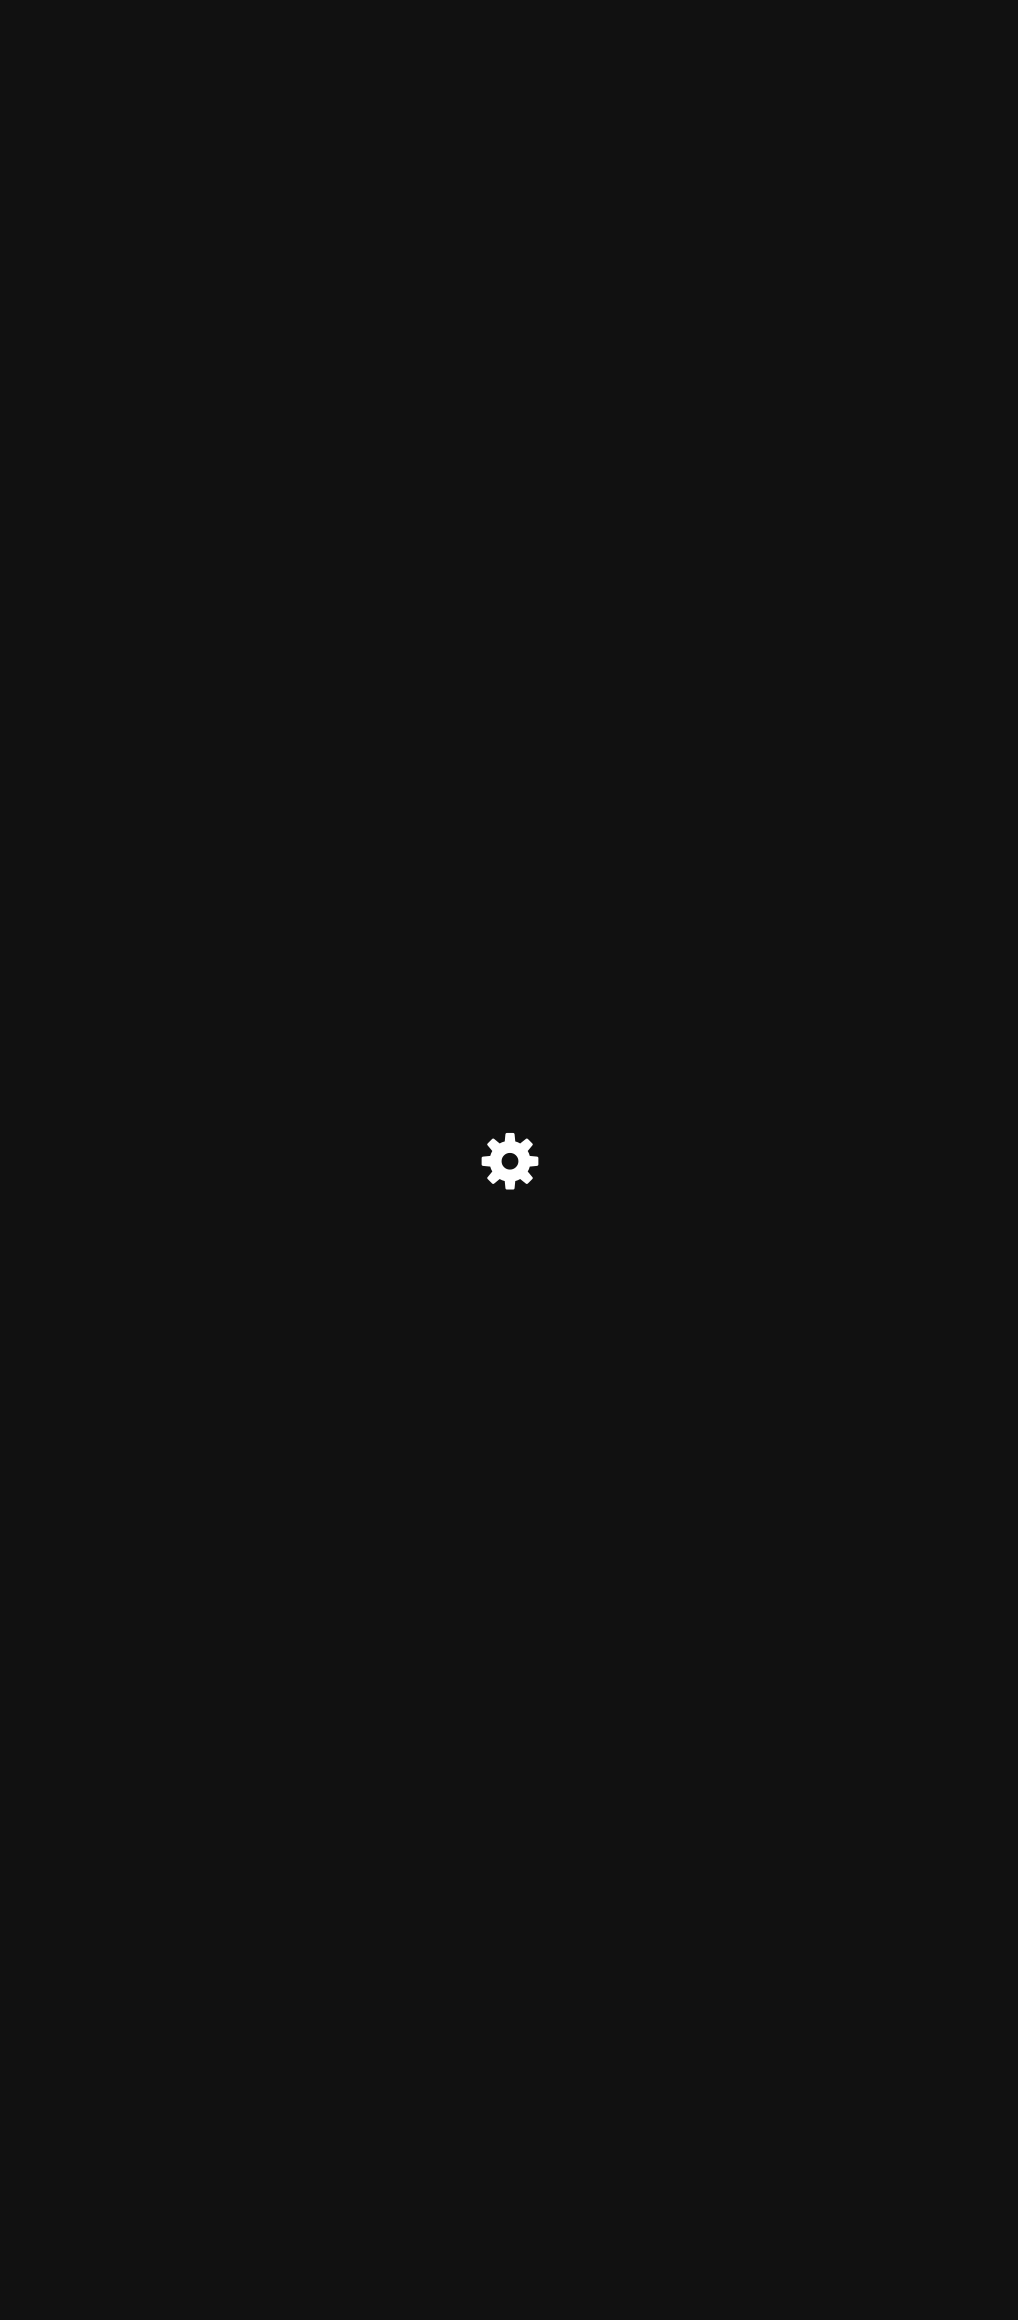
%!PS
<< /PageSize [1018 2320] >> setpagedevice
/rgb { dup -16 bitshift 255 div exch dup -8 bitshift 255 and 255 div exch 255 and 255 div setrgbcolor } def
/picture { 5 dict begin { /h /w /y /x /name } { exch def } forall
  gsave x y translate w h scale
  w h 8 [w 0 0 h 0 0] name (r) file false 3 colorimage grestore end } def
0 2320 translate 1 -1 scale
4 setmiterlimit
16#111111 rgb
0 0 1018 2320 rectfill
(pic1.raw) 481 1132 58 58 picture
showpage
